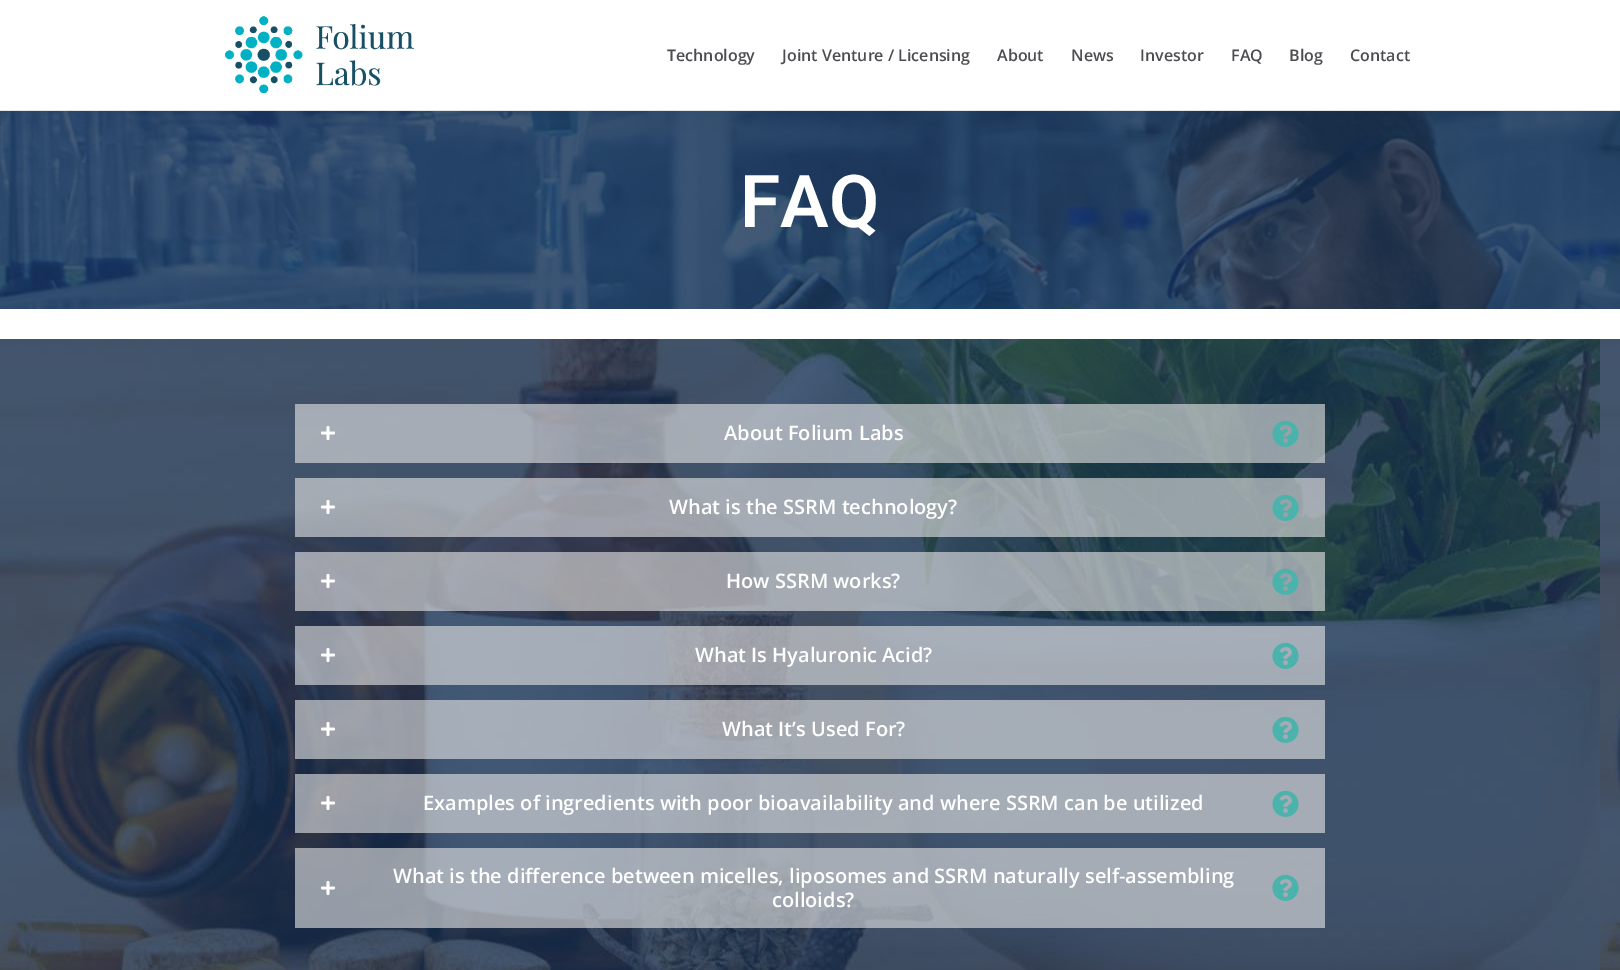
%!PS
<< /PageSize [1620 970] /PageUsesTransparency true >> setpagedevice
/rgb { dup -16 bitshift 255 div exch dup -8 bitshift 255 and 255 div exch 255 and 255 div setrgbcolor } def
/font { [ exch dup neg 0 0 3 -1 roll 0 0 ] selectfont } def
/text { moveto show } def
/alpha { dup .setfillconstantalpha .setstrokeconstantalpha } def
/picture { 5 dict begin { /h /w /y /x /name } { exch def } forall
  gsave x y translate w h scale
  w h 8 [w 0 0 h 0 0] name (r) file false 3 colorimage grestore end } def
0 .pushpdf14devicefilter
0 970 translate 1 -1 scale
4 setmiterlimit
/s1 { /OpenSans-SemiBold 16 font 16#4C4D51 rgb } def
/s2 { /Roboto-SemiBold 73 font 16#FFFFFF rgb } def
/s3 { /OpenSans-SemiBold 20 font 16#FFFFFF rgb } def
16#FFFFFF rgb
0 0 1620 970 rectfill
16#E5E5E5 rgb
0 110 1620 1 rectfill
(pic1.raw) 225 16 189 77 picture
s1
(Technology) 667 61 text
(Joint Venture / Licensing) 782 61 text
(About) 997 61 text
(News) 1071 61 text
(Investor) 1140 61 text
(FAQ) 1231 61 text
(Blog) 1289 61 text
(Contact) 1350 61 text
(pic2.raw) 0 111 1620 198 picture
s2
(FAQ) 740 227 text
(pic3.raw) 0 339 1620 631 picture
0.62 alpha
16#E3E3E3 rgb
295 404 1030 59 rectfill
1 alpha
(pic4.raw) 321 426 14 14 picture
s3
(About Folium Labs) 724 440 text
(pic5.raw) 1272 420 27 27 picture
0.62 alpha
16#E3E3E3 rgb
295 478 1030 59 rectfill
1 alpha
(pic6.raw) 321 500 14 14 picture
s3
(What is the SSRM technology?) 669 514 text
(pic7.raw) 1272 494 27 27 picture
0.62 alpha
16#E3E3E3 rgb
295 552 1030 59 rectfill
1 alpha
(pic8.raw) 321 574 14 14 picture
s3
(How SSRM works?) 726 588 text
(pic9.raw) 1272 568 27 27 picture
0.62 alpha
16#E3E3E3 rgb
295 626 1030 59 rectfill
1 alpha
(pic10.raw) 321 648 14 14 picture
s3
(What Is Hyaluronic Acid?) 695 662 text
(pic11.raw) 1272 642 27 27 picture
0.62 alpha
16#E3E3E3 rgb
295 700 1030 59 rectfill
1 alpha
(pic12.raw) 321 722 14 14 picture
s3
(What It’s Used For?) 722 736 text
(pic13.raw) 1272 716 27 27 picture
0.62 alpha
16#E3E3E3 rgb
295 774 1030 59 rectfill
1 alpha
(pic14.raw) 321 796 14 14 picture
s3
(Examples of ingredients with poor bioavailability and where SSRM can be utilized) 423 810 text
(pic15.raw) 1272 790 27 27 picture
0.62 alpha
16#E3E3E3 rgb
295 848 1030 80 rectfill
1 alpha
(pic16.raw) 321 881 14 14 picture
s3
(What is the difference between micelles, liposomes and SSRM naturally self-assembling) 393 883 text
(colloids?) 772 907 text
(pic17.raw) 1272 874 27 27 picture
.poppdf14devicefilter showpage
